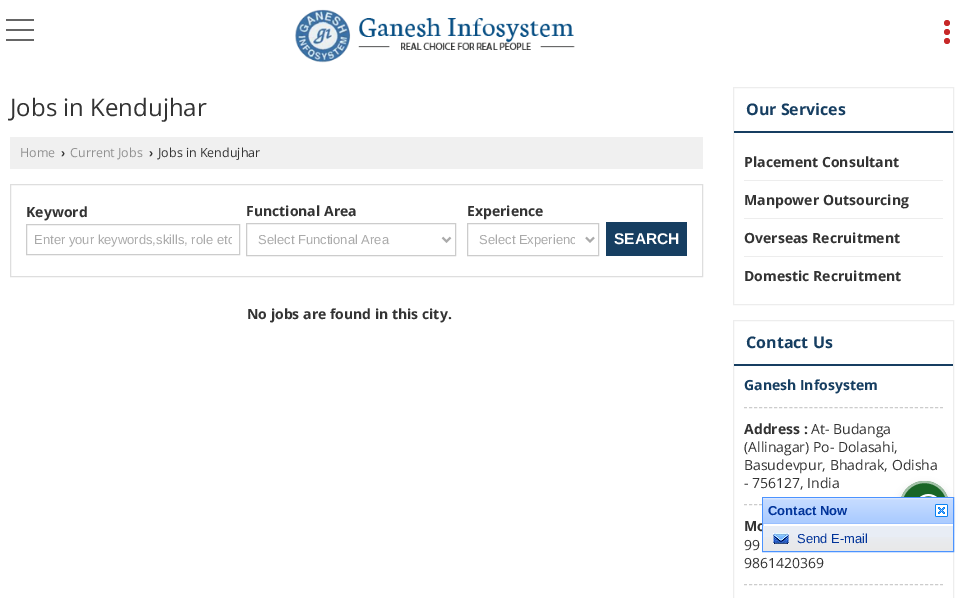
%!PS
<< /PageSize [964 598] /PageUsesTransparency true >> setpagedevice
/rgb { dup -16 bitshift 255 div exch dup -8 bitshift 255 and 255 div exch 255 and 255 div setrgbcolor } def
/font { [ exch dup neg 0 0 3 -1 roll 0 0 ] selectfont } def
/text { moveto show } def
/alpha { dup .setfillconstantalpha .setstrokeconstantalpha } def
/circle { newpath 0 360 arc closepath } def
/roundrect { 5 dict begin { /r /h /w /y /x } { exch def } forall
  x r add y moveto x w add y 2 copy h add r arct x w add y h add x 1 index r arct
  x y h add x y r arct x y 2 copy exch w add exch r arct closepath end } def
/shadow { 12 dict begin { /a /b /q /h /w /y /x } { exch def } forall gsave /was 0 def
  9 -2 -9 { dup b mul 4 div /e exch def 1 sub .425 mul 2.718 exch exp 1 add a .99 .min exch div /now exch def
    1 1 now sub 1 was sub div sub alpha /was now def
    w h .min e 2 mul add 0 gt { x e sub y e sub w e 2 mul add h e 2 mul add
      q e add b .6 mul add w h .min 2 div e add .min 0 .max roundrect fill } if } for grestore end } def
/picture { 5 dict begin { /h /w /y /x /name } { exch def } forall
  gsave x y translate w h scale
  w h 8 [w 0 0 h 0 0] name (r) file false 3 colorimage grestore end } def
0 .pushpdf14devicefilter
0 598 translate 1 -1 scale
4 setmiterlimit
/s1 { /OpenSans-Regular 24 font 16#333333 rgb } def
/s2 { /OpenSans-Regular 12.5 font 16#909090 rgb } def
/s3 { /LiberationSans-Bold 12.5 font 16#333333 rgb } def
/s4 { /OpenSans-Regular 12.5 font 16#333333 rgb } def
/s5 { /OpenSans-Bold 14 font 16#333333 rgb } def
/s6 { /LiberationSans-Regular 13 font 16#AAAAAA rgb } def
/s7 { /LiberationSans-Bold 15.5 font 16#FFFFFF rgb } def
/s8 { /OpenSans-Bold 16 font 16#163E61 rgb } def
/s9 { /OpenSans-Bold 14 font 16#163E61 rgb } def
/s10 { /OpenSans-Regular 14 font 16#333333 rgb } def
/s11 { /LiberationSans-Bold 13 font 16#003399 rgb } def
/s12 { /LiberationSans-Regular 13 font 16#003399 rgb } def
16#FFFFFF rgb
0 0 964 598 rectfill
(pic1.raw) 295 9 280 54 picture
16#666666 rgb
6 29 28 2 rectfill
6 19 28 2 rectfill
6 39 28 2 rectfill
16#C72828 rgb
947 32 3 circle fill
947 23 3 circle fill
947 41 3 circle fill
s1
(Jobs in Kendujhar) 10 116 text
16#F0F0F0 rgb
10 137 693 32 rectfill
s2
(Home) 20 157 text
s3
(›) 61 157 text
s2
(Current Jobs) 70 157 text
s3
(›) 149 157 text
s4
(Jobs in Kendujhar) 158 157 text
16#DEDEDE rgb
10.5 184.5 692 92 rectstroke
s5
(Keyword) 26 217 text
16#CCCCCC rgb
26.5 224.5 213 30 rectstroke
gsave
34 232 198 15 rectclip
s6
(Enter your keywords,skills, role etc) 34 244 text
grestore
s5
(Functional Area) 246 216 text
16#CCCCCC rgb
246.5 223.5 209 32 rectstroke
16#AAAAAA rgb
2 setlinewidth
442.5 237.5 moveto 446.5 241.5 lineto 450.5 237.5 lineto stroke
s6
(Select Functional Area) 258 244 text
s5
(Experience) 467 216 text
16#CCCCCC rgb
1 setlinewidth
467.5 223.5 131 32 rectstroke
16#AAAAAA rgb
2 setlinewidth
586 237.5 moveto 590 241.5 lineto 594 237.5 lineto stroke
gsave
479 231 96 17 rectclip
s6
(Select Experienc) 479 244 text
grestore
16#163E61 rgb
606 222 81 34 rectfill
s7
(SEARCH) 614 244 text
s5
(No jobs are found in this city.) 247 319 text
16#EDEDED rgb
1 setlinewidth
733.5 87.5 220 217 rectstroke
16#163E61 rgb
734 131 219 2 rectfill
s8
(Our Services) 746 115 text
16#EDEDED rgb
744 180 199 1 rectfill
s5
(Placement Consultant) 744 167 text
16#EDEDED rgb
744 218 199 1 rectfill
s5
(Manpower Outsourcing) 744 205 text
16#EDEDED rgb
744 256 199 1 rectfill
s5
(Overseas Recruitment) 744 243 text
(Domestic Recruitment) 744 281 text
16#EDEDED rgb
733.5 320.5 220 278 rectstroke
16#163E61 rgb
734 364 219 2 rectfill
s8
(Contact Us) 746 348 text
s9
(Ganesh Infosystem) 744 390 text
16#CCCCCC rgb
[3 2.03] 0 setdash
744 407.5 moveto 943 407.5 lineto stroke
s5
(Address :) 744 434 text
s10
(At- Budanga) 811 434 text
(\(Allinagar\) Po- Dolasahi,) 744 452 text
(Basudevpur, Bhadrak, Odisha) 744 470 text
(- 756127, India) 744 488 text
16#CCCCCC rgb
744 504.5 moveto 943 504.5 lineto stroke
s5
(Mo) 744 531 text
s10
(99) 744 550 text
(9861420369) 744 568 text
16#CCCCCC rgb
744 584.5 moveto 943 584.5 lineto stroke
16#000000 rgb
898 485 53 59 26.5 4 0.14 shadow
16#196626 rgb
900 481 49 55 24.5 roundrect fill
0.6 alpha
16#FFFFFF rgb
2 setlinewidth
[] 0 setdash
901 482 47 53 23.5 roundrect stroke
1 alpha
763 524 190 2 rectfill
16#4B93FF rgb
1 setlinewidth
762.5 497.5 191 54 rectstroke
(pic2.raw) 763 498 190 26 picture
s11
(Contact Now) 768 515 text
(pic3.raw) 935 504 13 13 picture
16#E8EDF5 rgb
763 526 190 11 rectfill
(pic4.raw) 763 537 190 14 picture
(pic5.raw) 773 533 20 11 picture
s12
(Send E-mail) 797 543 text
(pic6.raw) 920 494 17 3 picture
.poppdf14devicefilter showpage
